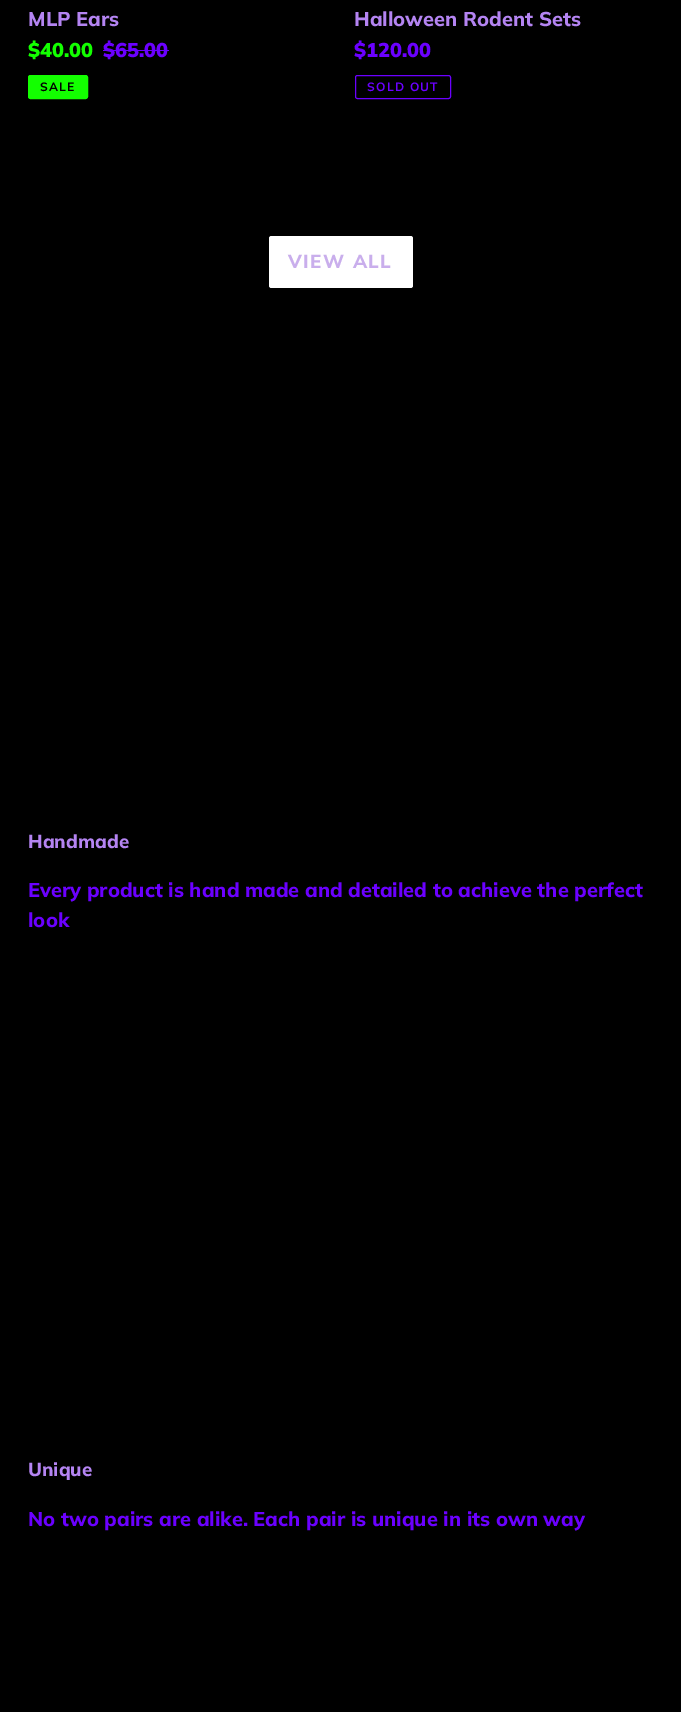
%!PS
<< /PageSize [681 1712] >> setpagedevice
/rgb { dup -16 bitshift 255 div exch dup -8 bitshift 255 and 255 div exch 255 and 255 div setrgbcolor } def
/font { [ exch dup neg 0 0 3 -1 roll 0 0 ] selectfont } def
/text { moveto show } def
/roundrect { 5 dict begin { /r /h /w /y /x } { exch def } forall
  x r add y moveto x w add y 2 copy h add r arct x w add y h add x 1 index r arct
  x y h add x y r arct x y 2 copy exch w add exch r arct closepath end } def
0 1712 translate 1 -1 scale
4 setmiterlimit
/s1 { /Muli-ExtraBold 20 font 16#B484F2 rgb } def
/s2 { /Muli-Black 20 font 16#13FF00 rgb } def
/s3 { /Muli-Black 20 font 16#6B00FF rgb } def
/s4 { /Muli-ExtraBold 18.75 font 16#B484F2 rgb } def
/s5 { /Muli-ExtraBold 20 font 16#6B00FF rgb } def
16#000000 rgb
0 0 681 1712 rectfill
s1
(MLP Ears) 28 26 text
s2
($40.00) 28 57 text
s3
($65.00) 103 57 text
103 50 66 1 rectfill
16#13FF00 rgb
28.5 75.5 59 23 2 roundrect gsave fill grestore
stroke
/Muli-Bold 12 font
16#000000 rgb
40 91 moveto 1.25 0 (SALE) ashow
s1
(Halloween Rodent Sets) 354 26 text
s3
($120.00) 354 57 text
355.5 75.5 95 23 2 roundrect stroke
/Muli-Bold 12 font
367 91 moveto 1.25 0 (SOLD OUT) ashow
16#FFFFFF rgb
269 236 144 52 2.5 roundrect fill
/Muli-ExtraBold 18.75 font
16#C9AEEC rgb
288 268 moveto 1.5 0 (VIEW ALL) ashow
s4
(Handmade) 28 848 text
s5
(Every product is hand made and detailed to achieve the perfect) 28 897 text
(look) 28 927 text
s4
(Unique) 28 1476 text
s5
(No two pairs are alike. Each pair is unique in its own way) 28 1526 text
showpage
